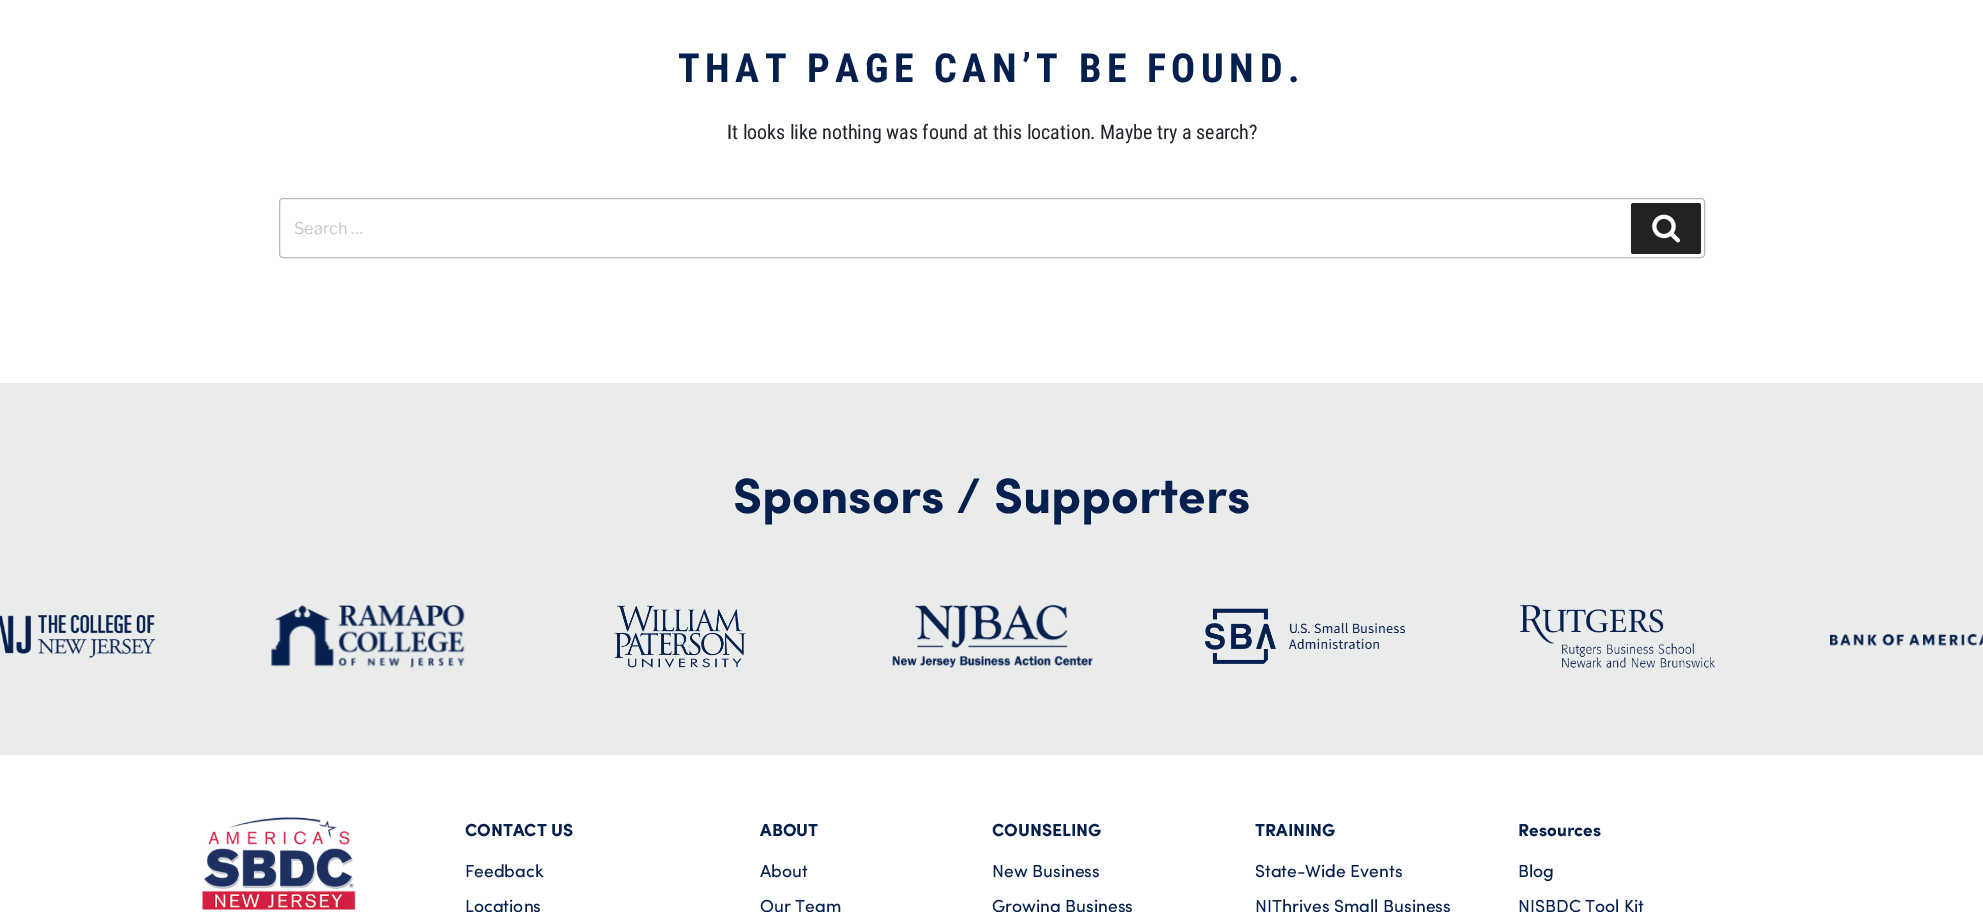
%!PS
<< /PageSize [1983 912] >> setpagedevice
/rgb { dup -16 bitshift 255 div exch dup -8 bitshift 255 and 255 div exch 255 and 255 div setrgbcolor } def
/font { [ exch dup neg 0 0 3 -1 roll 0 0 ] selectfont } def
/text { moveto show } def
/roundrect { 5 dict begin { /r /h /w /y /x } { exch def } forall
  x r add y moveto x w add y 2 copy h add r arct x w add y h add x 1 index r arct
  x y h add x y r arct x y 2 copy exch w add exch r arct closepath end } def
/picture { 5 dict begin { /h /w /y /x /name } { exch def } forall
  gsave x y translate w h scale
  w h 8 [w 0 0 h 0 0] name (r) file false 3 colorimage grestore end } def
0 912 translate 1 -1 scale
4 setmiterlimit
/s1 { /RobotoCondensed-Regular 20 font 16#212529 rgb } def
/s2 { /LibreFranklin-Regular 16.25 font 16#C4C5C7 rgb } def
/s3 { /Sofia-Bold 50 font 16#05204F rgb } def
/s4 { /Sofia-Bold 17.5 font 16#05204F rgb } def
/s5 { /Sofia-Regular 17.5 font 16#05204F rgb } def
16#FFFFFF rgb
0 0 1983 912 rectfill
/RobotoCondensed-Bold 40 font
16#05204F rgb
678 82 moveto 5.6 0 (THAT PAGE CAN’T BE FOUND.) ashow
s1
(It looks like nothing was found at this location. Maybe try a search?) 727 139 text
16#BBBBBB rgb
279.5 198.5 1425 59 3.5 roundrect stroke
s2
(Search …) 294 234 text
16#222222 rgb
1631 203 70 51 2.5 roundrect fill
(pic1.raw) 1652 214 28 29 picture
16#EAEBEB rgb
0 383 1983 372 rectfill
s3
(Sponsors / Supporters) 733 513 text
(pic2.raw) 0 615 155 43 picture
(pic3.raw) 271 605 194 63 picture
(pic4.raw) 614 605 132 63 picture
(pic5.raw) 892 605 201 63 picture
(pic6.raw) 1205 608 200 56 picture
(pic7.raw) 1520 605 195 63 picture
(pic8.raw) 1830 633 153 13 picture
(pic9.raw) 202 817 154 93 picture
s4
(CONTACT US) 465 836 text
s5
(Feedback) 465 877 text
(Locations) 465 912 text
s4
(ABOUT) 760 836 text
s5
(About) 760 877 text
(Our Team) 760 912 text
s4
(COUNSELING) 992 836 text
s5
(New Business) 992 877 text
(Growing Business) 992 912 text
s4
(TRAINING) 1255 836 text
s5
(State-Wide Events) 1255 877 text
(NJThrives Small Business) 1255 912 text
s4
(Resources) 1518 836 text
s5
(Blog) 1518 877 text
(NJSBDC Tool Kit) 1518 912 text
showpage
